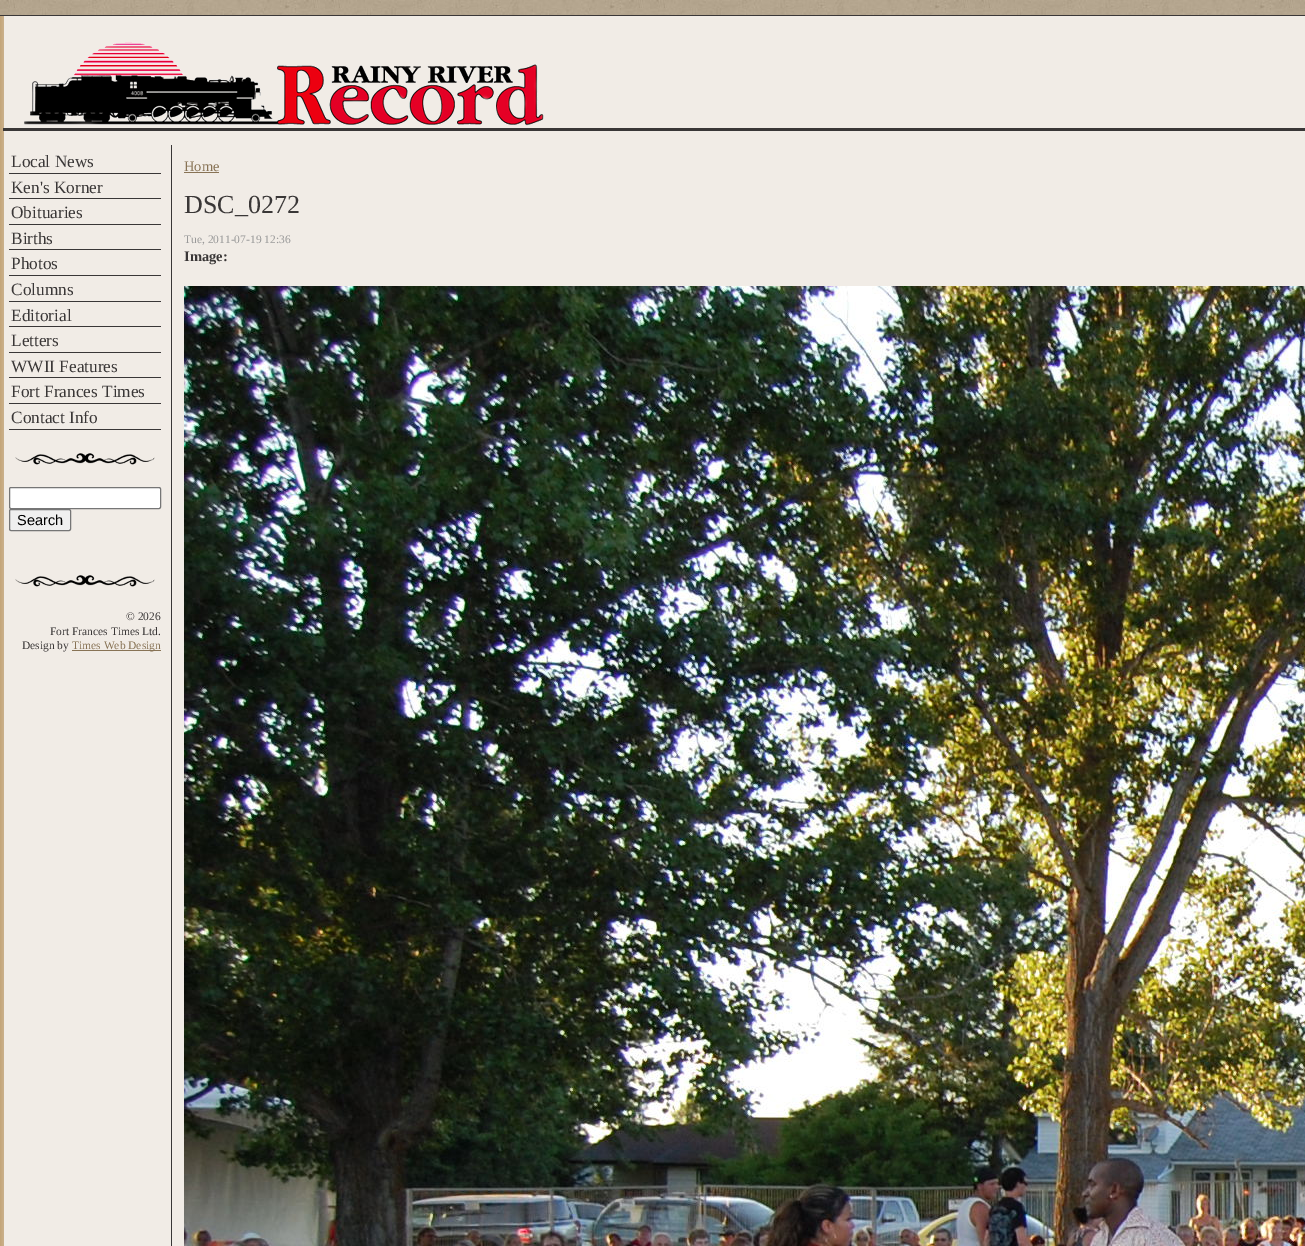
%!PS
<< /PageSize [1305 1246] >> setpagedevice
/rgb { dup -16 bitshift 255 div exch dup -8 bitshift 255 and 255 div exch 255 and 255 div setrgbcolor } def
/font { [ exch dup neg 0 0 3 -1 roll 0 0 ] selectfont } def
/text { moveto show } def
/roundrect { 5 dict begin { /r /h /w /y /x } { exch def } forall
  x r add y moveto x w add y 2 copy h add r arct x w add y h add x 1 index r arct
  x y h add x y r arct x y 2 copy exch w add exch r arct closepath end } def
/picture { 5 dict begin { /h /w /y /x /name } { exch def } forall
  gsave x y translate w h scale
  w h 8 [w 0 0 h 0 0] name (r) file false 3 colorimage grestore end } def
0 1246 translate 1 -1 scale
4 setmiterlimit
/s1 { /LiberationSerif-Regular 17.25 font 16#3A3737 rgb } def
/s2 { /LiberationSans-Regular 14.5 font 16#000000 rgb } def
/s3 { /LiberationSerif-Regular 11.5 font 16#3A3737 rgb } def
/s4 { /LiberationSerif-Regular 11.5 font 16#887355 rgb } def
/s5 { /LiberationSerif-Regular 14.5 font 16#887355 rgb } def
/s6 { /LiberationSerif-Regular 26 font 16#3A3737 rgb } def
/s7 { /LiberationSerif-Regular 11.5 font 16#999999 rgb } def
/s8 { /LiberationSerif-Bold 14.5 font 16#3A3737 rgb } def
16#FFFFFF rgb
0 0 1305 1246 rectfill
(pic1.raw) 0 0 1305 15 picture
16#F1ECE6 rgb
4 16 1301 1230 rectfill
16#3A3737 rgb
0 15 1305 1 rectfill
(pic2.raw) 0 16 4 1230 picture
3 128 1302 3 rectfill
(pic3.raw) 24 42 520 84 picture
171 145 1 1101 rectfill
9 173 152 1 rectfill
s1
(Local News) 11 167 text
9 198 152 1 rectfill
(Ken's Korner) 11 193 text
9 224 152 1 rectfill
(Obituaries) 11 218 text
9 249 152 1 rectfill
(Births) 11 244 text
9 275 152 1 rectfill
(Photos) 11 269 text
9 301 152 1 rectfill
(Columns) 11 295 text
9 326 152 1 rectfill
(Editorial) 11 321 text
9 352 152 1 rectfill
(Letters) 11 346 text
9 377 152 1 rectfill
(WWII Features) 11 372 text
9 403 152 1 rectfill
(Fort Frances Times) 11 397 text
9 429 152 1 rectfill
(Contact Info) 11 423 text
(pic4.raw) 15 453 140 12 picture
16#FFFFFF rgb
9.5 487.5 151 21 1.5 roundrect gsave fill grestore
16#767676 rgb
stroke
16#EFEFEF rgb
9.5 509.5 61 21 1.5 roundrect gsave fill grestore
16#767676 rgb
stroke
s2
(Search) 17 525 text
(pic4.raw) 15 575 140 12 picture
s3
(© 2026) 126 620 text
(Fort Frances Times Ltd.) 50 635 text
(Design by) 22 649 text
16#887355 rgb
72 650 89 1 rectfill
(Times Web Design) 72 649 text
s5
(Home) 184 171 text
184 172 35 1 rectfill
s6
(DSC_0272) 184 213 text
s7
(Tue, 2011-07-19 12:36) 184 243 text
s8
(Image:) 184 261 text
(pic5.raw) 184 286 1121 960 picture
showpage
